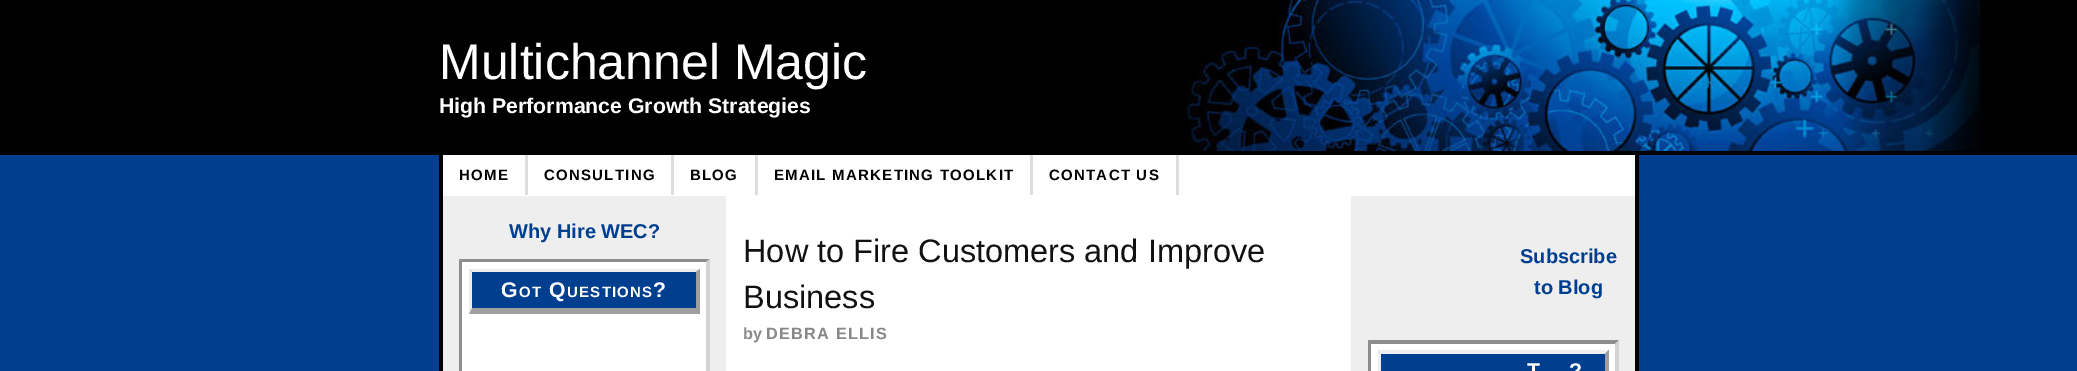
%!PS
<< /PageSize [2077 371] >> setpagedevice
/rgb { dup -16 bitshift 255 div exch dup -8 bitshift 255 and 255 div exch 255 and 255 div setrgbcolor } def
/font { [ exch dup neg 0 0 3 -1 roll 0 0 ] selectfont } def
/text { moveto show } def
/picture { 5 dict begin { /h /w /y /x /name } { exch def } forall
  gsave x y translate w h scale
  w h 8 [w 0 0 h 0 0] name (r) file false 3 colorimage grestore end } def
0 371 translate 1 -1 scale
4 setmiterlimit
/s1 { /LiberationSans-Regular 50 font 16#FFFFFF rgb } def
/s2 { /LiberationSans-Bold 21.25 font 16#FFFFFF rgb } def
/s3 { /LiberationSans-Bold 20 font 16#003E8F rgb } def
/s4 { /LiberationSans-Regular 32.5 font 16#111111 rgb } def
/s5 { /LiberationSans-Bold 16.25 font 16#888888 rgb } def
16#003E8F rgb
0 0 2077 371 rectfill
16#000000 rgb
0 0 578 151 rectfill
(pic1.raw) 577 0 1500 151 picture
0 151 2077 4 rectfill
s1
(Multichannel Magic) 439 79 text
s2
(High Performance Growth Strategies) 439 113 text
443 155 1192 41 rectfill
16#000000 rgb
1635 155 4 216 rectfill
439 155 4 216 rectfill
16#DDDDDD rgb
525 155 3 40 rectfill
/LiberationSans-Bold 15 font
16#000000 rgb
459 180 moveto 1.25 0 (HOME) ashow
16#DDDDDD rgb
671 155 3 40 rectfill
16#000000 rgb
544 180 moveto 1.25 0 (CONSULTING) ashow
16#DDDDDD rgb
755 155 3 40 rectfill
16#000000 rgb
690 180 moveto 1.25 0 (BLOG) ashow
16#DDDDDD rgb
1030 155 3 40 rectfill
16#000000 rgb
774 180 moveto 1.25 0 (EMAIL MARKETING TOOLKIT) ashow
16#DDDDDD rgb
1176 155 3 40 rectfill
16#000000 rgb
1049 180 moveto 1.25 0 (CONTACT US) ashow
16#EEEEEE rgb
443 196 1192 175 rectfill
s3
(Why Hire WEC?) 509 238 text
16#FFFFFF rgb
459 259 251 112 rectfill
16#8D8D8D rgb
459 259 moveto 710 259 lineto 706 262 lineto 462 262 lineto closepath fill
16#D3D3D3 rgb
710 259 moveto 710 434 lineto 706 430 lineto 706 262 lineto closepath fill
16#8D8D8D rgb
459 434 moveto 459 259 lineto 462 262 lineto 462 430 lineto closepath fill
16#003E8F rgb
469 269 231 45 rectfill
16#EEEEEE rgb
469 269 moveto 700 269 lineto 696 272 lineto 472 272 lineto closepath fill
16#9F9F9F rgb
700 269 moveto 700 314 lineto 696 308 lineto 696 272 lineto closepath fill
700 314 moveto 469 314 lineto 472 308 lineto 696 308 lineto closepath fill
16#EEEEEE rgb
469 314 moveto 469 269 lineto 472 272 lineto 472 308 lineto closepath fill
/LiberationSans-Bold 21.25 font
16#FFFFFF rgb
501 297 moveto 1.25 0 (G) ashow
/LiberationSans-Bold 15 font
519 297 moveto 1.25 0 (OT) ashow
/LiberationSans-Bold 21.25 font
549 297 moveto 1.25 0 (Q) ashow
/LiberationSans-Bold 15 font
567 297 moveto 1.25 0 (UESTIONS) ashow
/LiberationSans-Bold 21.25 font
653 297 moveto 1.25 0 (?) ashow
726 196 625 175 rectfill
s4
(How to Fire Customers and Improve) 743 262 text
(Business) 743 308 text
s5
(by) 743 339 text
766 339 moveto 1.25 0 (DEBRA ELLIS) ashow
s3
(Subscribe) 1520 263 text
(to Blog) 1534 294 text
16#FFFFFF rgb
1368 340 251 31 rectfill
16#8D8D8D rgb
1368 340 moveto 1619 340 lineto 1615 344 lineto 1371 344 lineto closepath fill
16#D3D3D3 rgb
1619 340 moveto 1619 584 lineto 1615 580 lineto 1615 344 lineto closepath fill
16#8D8D8D rgb
1368 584 moveto 1368 340 lineto 1371 344 lineto 1371 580 lineto closepath fill
16#003E8F rgb
1378 350 231 21 rectfill
16#EEEEEE rgb
1378 350 moveto 1609 350 lineto 1605 354 lineto 1381 354 lineto closepath fill
16#9F9F9F rgb
1609 350 moveto 1609 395 lineto 1605 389 lineto 1605 354 lineto closepath fill
16#EEEEEE rgb
1378 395 moveto 1378 350 lineto 1381 354 lineto 1381 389 lineto closepath fill
/LiberationSans-Bold 21.25 font
16#FFFFFF rgb
1527 378 moveto 1.25 0 (T) ashow
1569 378 moveto 1.25 0 (?) ashow
showpage
